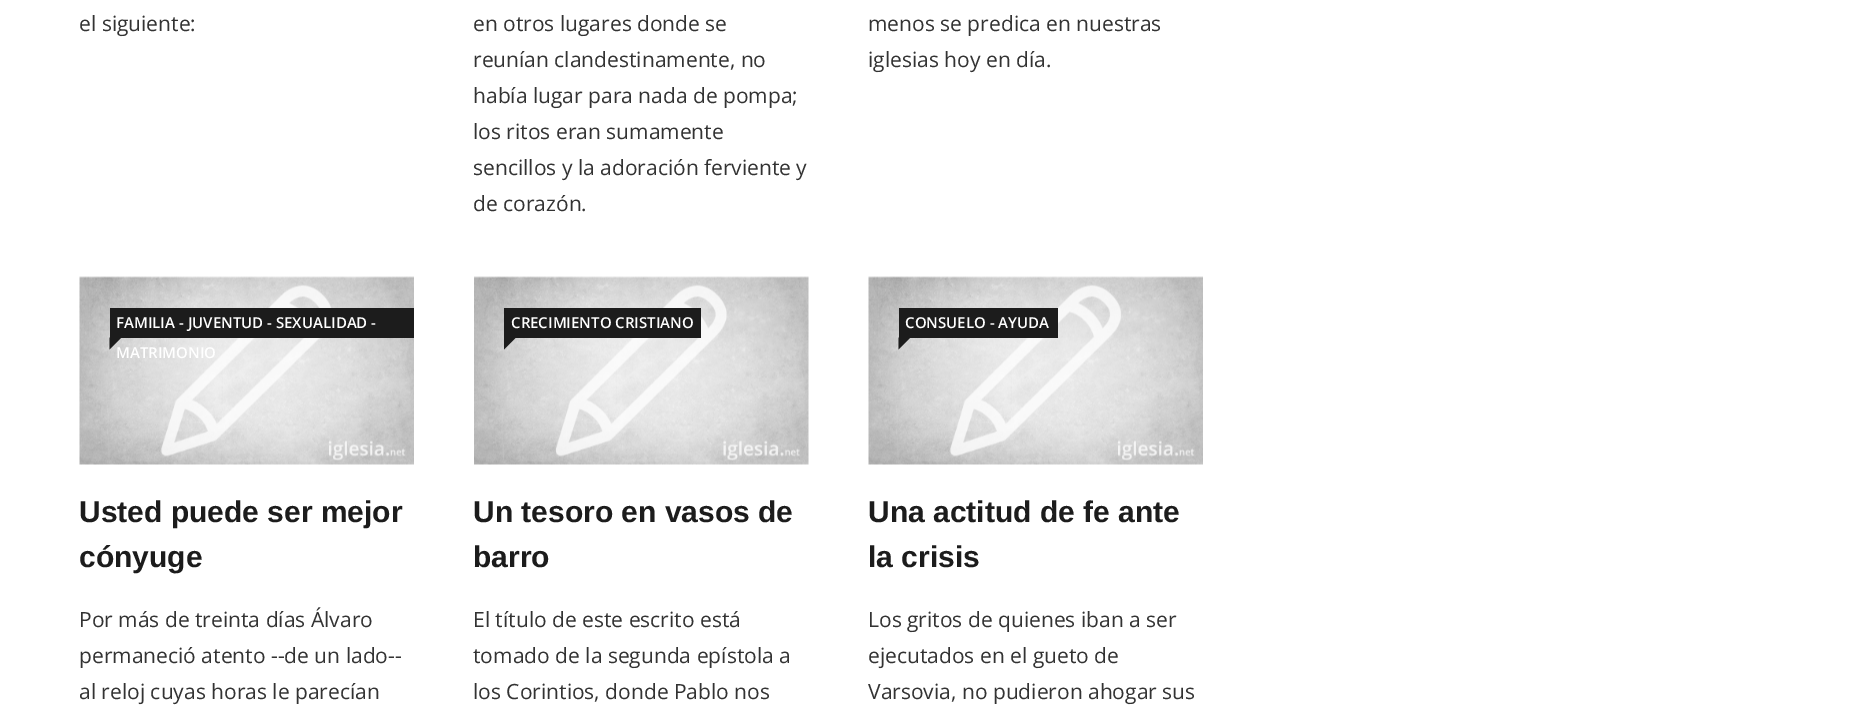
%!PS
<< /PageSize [1867 722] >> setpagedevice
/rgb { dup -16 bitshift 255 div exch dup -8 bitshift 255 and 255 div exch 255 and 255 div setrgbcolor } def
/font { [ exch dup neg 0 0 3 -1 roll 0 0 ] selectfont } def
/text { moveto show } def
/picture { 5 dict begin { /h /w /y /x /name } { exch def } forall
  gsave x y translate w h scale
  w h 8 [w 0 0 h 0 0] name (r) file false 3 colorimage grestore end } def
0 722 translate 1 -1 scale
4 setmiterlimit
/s1 { /OpenSans-Regular 21 font 16#333333 rgb } def
/s2 { /OpenSans-SemiBold 15 font 16#FFFFFF rgb } def
/s3 { /Arimo-Bold 30 font 16#1C1C1C rgb } def
16#FFFFFF rgb
0 0 1867 722 rectfill
s1
(el siguiente:) 79 31 text
(en otros lugares donde se) 473 31 text
(reunían clandestinamente, no) 473 67 text
(había lugar para nada de pompa;) 473 103 text
(los ritos eran sumamente) 473 139 text
(sencillos y la adoración ferviente y) 473 175 text
(de corazón.) 473 211 text
(menos se predica en nuestras) 868 31 text
(iglesias hoy en día.) 868 67 text
(pic1.raw) 79 276 335 189 picture
16#1C1C1C rgb
110 308 304 30 rectfill
s2
(FAMILIA - JUVENTUD - SEXUALIDAD -) 116 328 text
(MATRIMONIO) 116 358 text
16#1C1C1C rgb
109.5 337.5 moveto 121.5 337.5 lineto 109.5 349.5 lineto closepath fill
s3
(Usted puede ser mejor) 79 522 text
(cónyuge) 79 567 text
s1
(Por más de treinta días Álvaro) 79 627 text
(permaneció atento --de un lado--) 79 663 text
(al reloj cuyas horas le parecían) 79 699 text
(pic2.raw) 474 276 335 189 picture
16#1C1C1C rgb
504 308 197 30 rectfill
s2
(CRECIMIENTO CRISTIANO) 511 328 text
16#1C1C1C rgb
504 337.5 moveto 516 337.5 lineto 504 349.5 lineto closepath fill
s3
(Un tesoro en vasos de) 473 522 text
(barro) 473 567 text
s1
(El título de este escrito está) 473 627 text
(tomado de la segunda epístola a) 473 663 text
(los Corintios, donde Pablo nos) 473 699 text
(pic1.raw) 868 276 335 189 picture
16#1C1C1C rgb
899 308 159 30 rectfill
s2
(CONSUELO - AYUDA) 905 328 text
16#1C1C1C rgb
898.5 337.5 moveto 910.5 337.5 lineto 898.5 349.5 lineto closepath fill
s3
(Una actitud de fe ante) 868 522 text
(la crisis) 868 567 text
s1
(Los gritos de quienes iban a ser) 868 627 text
(ejecutados en el gueto de) 868 663 text
(Varsovia, no pudieron ahogar sus) 868 699 text
showpage
